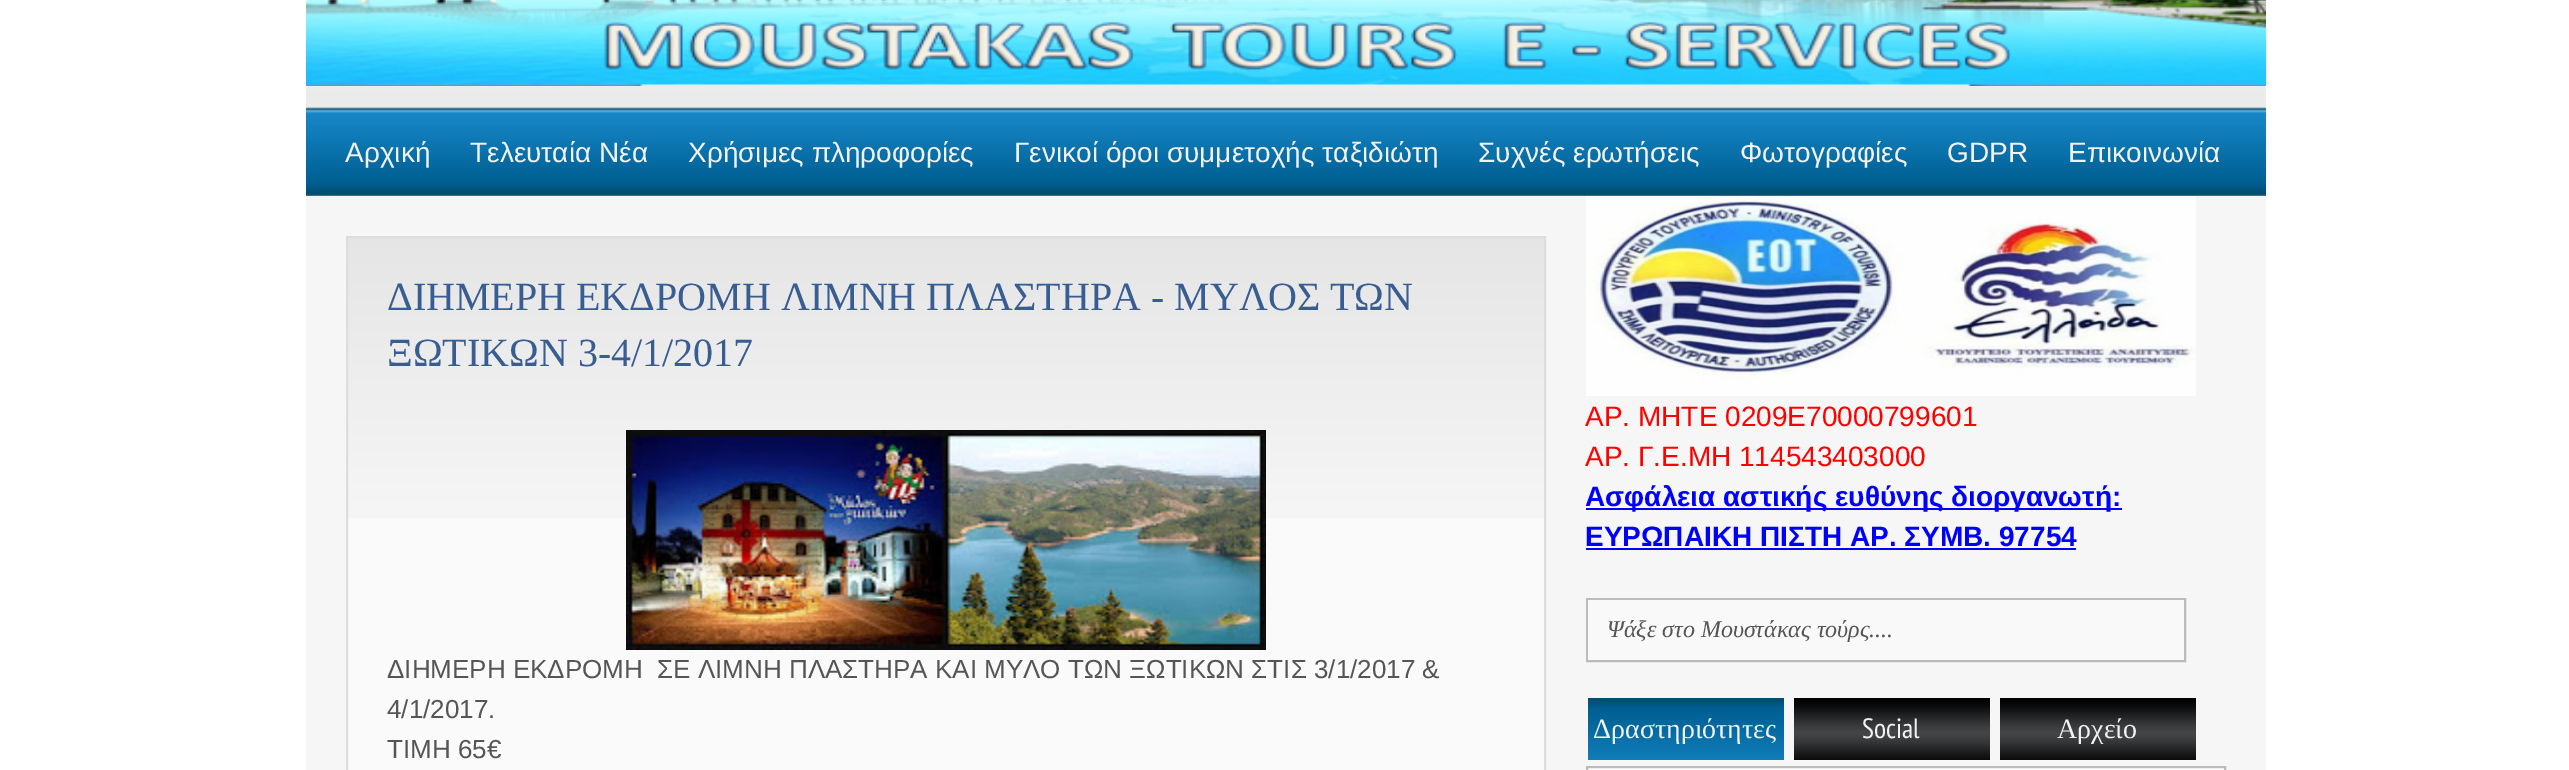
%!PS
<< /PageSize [2569 770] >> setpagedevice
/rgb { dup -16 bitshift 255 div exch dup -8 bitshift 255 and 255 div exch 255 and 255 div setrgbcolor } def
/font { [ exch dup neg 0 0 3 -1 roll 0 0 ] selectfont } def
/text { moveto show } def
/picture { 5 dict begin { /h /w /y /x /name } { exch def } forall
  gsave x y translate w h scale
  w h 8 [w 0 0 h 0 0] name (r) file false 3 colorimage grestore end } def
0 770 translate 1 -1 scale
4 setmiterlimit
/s1 { /LiberationSans-Regular 28 font 16#F2F2F2 rgb } def
/s2 { /LiberationSerif-Regular 40 font 16#385D92 rgb } def
/s3 { /LiberationSans-Regular 26 font 16#555555 rgb } def
/s4 { /LiberationSans-Regular 28 font 16#FF0000 rgb } def
/s5 { /LiberationSans-Bold 28 font 16#0000FF rgb } def
/s6 { /LiberationSerif-Italic 24 font 16#555555 rgb } def
/s7 { /LiberationSerif-Regular 28 font 16#F2F2F2 rgb } def
/s8 { /PTSansNarrow-Regular 28 font 16#F2F2F2 rgb } def
16#FFFFFF rgb
0 0 2569 770 rectfill
(pic1.raw) 306 86 1960 110 picture
(pic2.raw) 306 0 1960 86 picture
s1
(Αρχική) 345 162 text
(Τελευταία Νέα) 470 162 text
(Χρήσιμες πληροφορίες) 688 162 text
(Γενικοί όροι συμμετοχής ταξιδιώτη) 1014 162 text
(Συχνές ερωτήσεις) 1478 162 text
(Φωτογραφίες) 1740 162 text
(GDPR) 1947 162 text
(Επικοινωνία) 2068 162 text
16#F6F6F6 rgb
306 196 1960 574 rectfill
16#FAFAFA rgb
348 518 1196 252 rectfill
(pic3.raw) 348 238 1196 280 picture
16#DDDDDD rgb
2 setlinewidth
347 237 1198 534 rectstroke
s2
(ΔΙΗΜΕΡΗ ΕΚΔΡΟΜΗ ΛΙΜΝΗ ΠΛΑΣΤΗΡΑ - ΜΥΛΟΣ ΤΩΝ) 387 310 text
(ΞΩΤΙΚΩΝ 3-4/1/2017) 387 366 text
(pic4.raw) 626 430 640 220 picture
s3
(ΔΙΗΜΕΡΗ ΕΚΔΡΟΜΗ  ΣΕ ΛΙΜΝΗ ΠΛΑΣΤΗΡΑ ΚΑΙ ΜΥΛΟ ΤΩΝ ΞΩΤΙΚΩΝ ΣΤΙΣ 3/1/2017 &) 387 678 text
(4/1/2017.) 387 718 text
(ΤΙΜΗ 65€) 387 758 text
(pic5.raw) 1586 196 610 200 picture
s4
(ΑΡ. ΜΗΤΕ 0209Ε70000799601) 1585 426 text
(ΑΡ. Γ.Ε.ΜΗ 114543403000) 1585 466 text
16#0000FF rgb
1586 508 536 2 rectfill
s5
(Ασφάλεια αστικής ευθύνης διοργανωτή:) 1585 506 text
(ΕΥΡΩΠΑΙΚΗ ΠΙΣΤΗ ΑΡ. ΣΥΜΒ. 97754) 1585 546 text
1586 548 490 2 rectfill
16#BBBBBB rgb
1587 599 598 62 rectstroke
16#F9F9F9 rgb
1588 600 596 60 rectfill
s6
(Ψάξε στο Μουστάκας τούρς....) 1607 637 text
(pic6.raw) 1588 698 196 62 picture
s7
(Δραστηριότητες) 1593 738 text
(pic7.raw) 1794 698 196 62 picture
s8
(Social) 1862 738 text
(pic7.raw) 2000 698 196 62 picture
s7
(Αρχείο) 2057 738 text
16#FFFFFF rgb
1587 767 moveto 2225 767 lineto 2225 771 lineto 1587 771 lineto closepath gsave fill grestore
16#BBBBBB rgb
stroke
showpage
